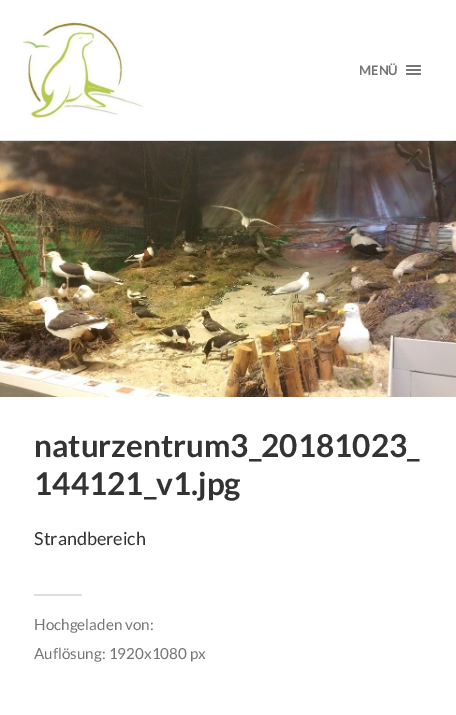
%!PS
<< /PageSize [456 715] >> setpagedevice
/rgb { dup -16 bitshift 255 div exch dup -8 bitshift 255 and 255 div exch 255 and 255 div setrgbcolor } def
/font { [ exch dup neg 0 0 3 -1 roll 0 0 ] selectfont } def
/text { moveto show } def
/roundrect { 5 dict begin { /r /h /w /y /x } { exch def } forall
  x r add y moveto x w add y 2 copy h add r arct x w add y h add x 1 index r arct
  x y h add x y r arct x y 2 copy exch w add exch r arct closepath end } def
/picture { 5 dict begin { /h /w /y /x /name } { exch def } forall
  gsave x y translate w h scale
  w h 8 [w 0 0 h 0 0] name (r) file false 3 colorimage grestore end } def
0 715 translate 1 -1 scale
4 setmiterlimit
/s1 { /Lato-Bold 13 font 16#767676 rgb } def
/s2 { /Lato-Bold 31.5 font 16#333333 rgb } def
/s3 { /Lato-Regular 18 font 16#333333 rgb } def
/s4 { /Lato-Regular 15.25 font 16#767676 rgb } def
16#FFFFFF rgb
0 0 456 715 rectfill
16#DDDDDD rgb
0 140 456 1 rectfill
(pic1.raw) 23 22 121 98 picture
s1
(MENÜ) 359 75 text
406 65 15 2 1 roundrect fill
406 69 15 2 1 roundrect fill
406 73 15 2 1 roundrect fill
(pic2.raw) 0 141 456 256 picture
s2
(naturzentrum3_20181023_) 34 457 text
(144121_v1.jpg) 34 495 text
s3
(Strandbereich) 34 545 text
16#DDDDDD rgb
34 594 48 2 rectfill
s4
(Hochgeladen von:) 34 630 text
(Auflösung: 1920x1080 px) 34 659 text
showpage
